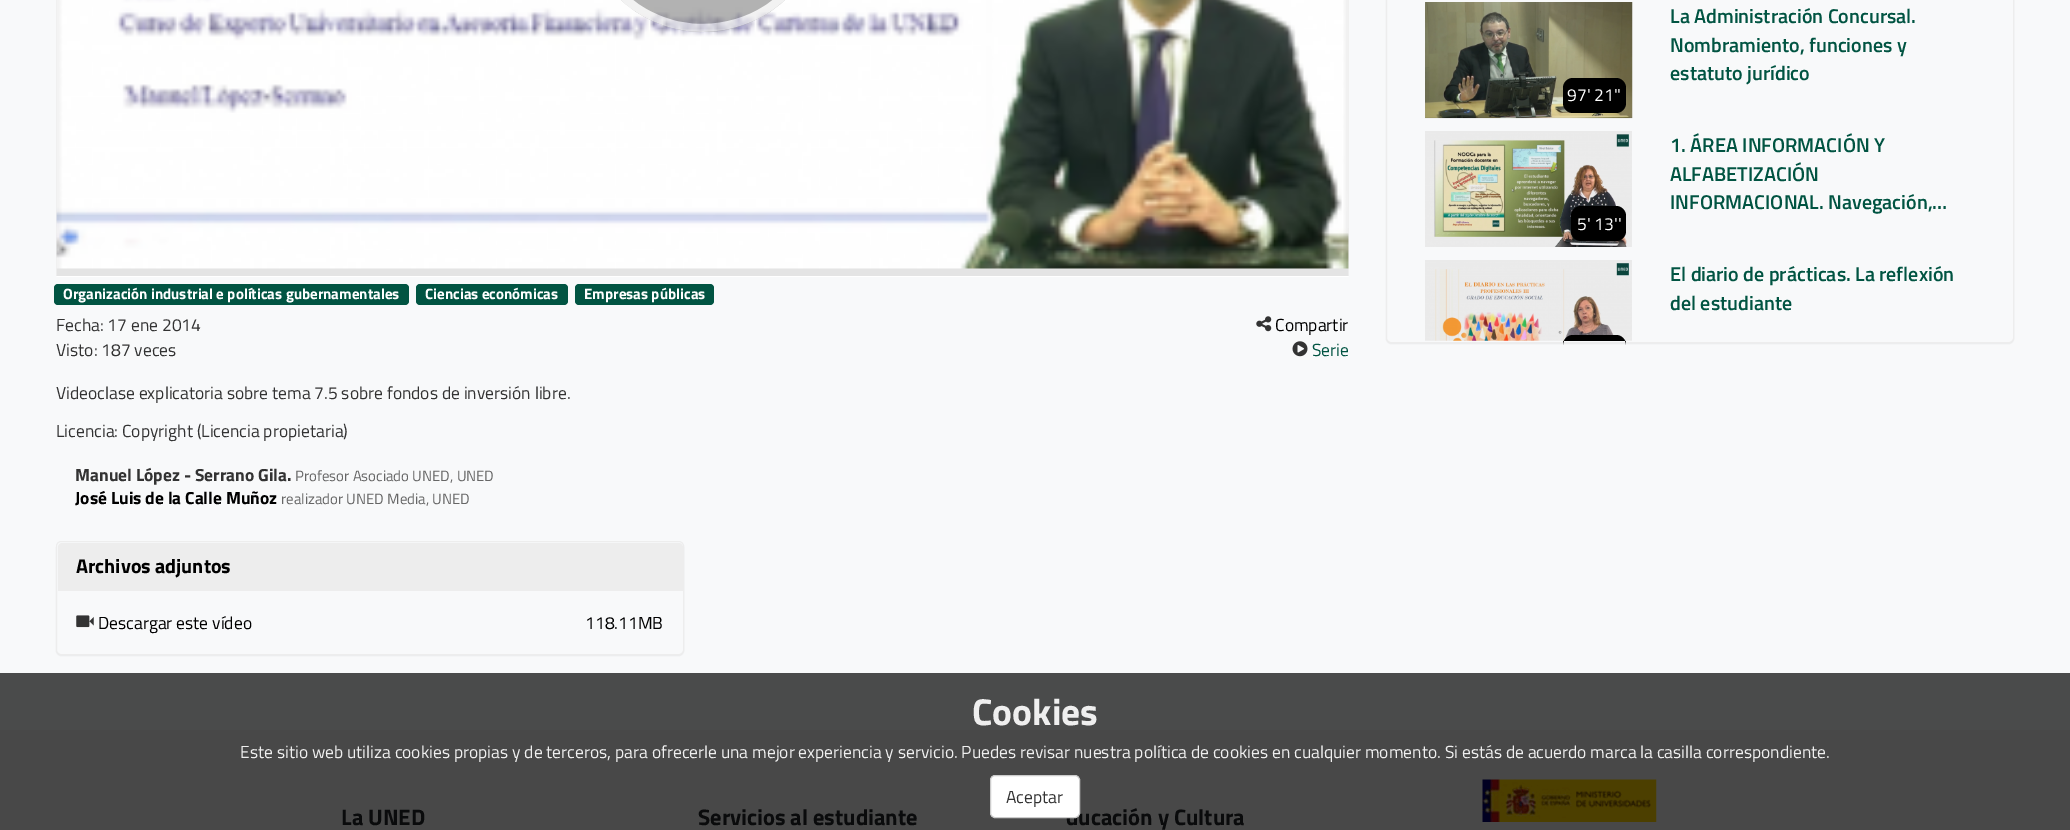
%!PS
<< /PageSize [2070 830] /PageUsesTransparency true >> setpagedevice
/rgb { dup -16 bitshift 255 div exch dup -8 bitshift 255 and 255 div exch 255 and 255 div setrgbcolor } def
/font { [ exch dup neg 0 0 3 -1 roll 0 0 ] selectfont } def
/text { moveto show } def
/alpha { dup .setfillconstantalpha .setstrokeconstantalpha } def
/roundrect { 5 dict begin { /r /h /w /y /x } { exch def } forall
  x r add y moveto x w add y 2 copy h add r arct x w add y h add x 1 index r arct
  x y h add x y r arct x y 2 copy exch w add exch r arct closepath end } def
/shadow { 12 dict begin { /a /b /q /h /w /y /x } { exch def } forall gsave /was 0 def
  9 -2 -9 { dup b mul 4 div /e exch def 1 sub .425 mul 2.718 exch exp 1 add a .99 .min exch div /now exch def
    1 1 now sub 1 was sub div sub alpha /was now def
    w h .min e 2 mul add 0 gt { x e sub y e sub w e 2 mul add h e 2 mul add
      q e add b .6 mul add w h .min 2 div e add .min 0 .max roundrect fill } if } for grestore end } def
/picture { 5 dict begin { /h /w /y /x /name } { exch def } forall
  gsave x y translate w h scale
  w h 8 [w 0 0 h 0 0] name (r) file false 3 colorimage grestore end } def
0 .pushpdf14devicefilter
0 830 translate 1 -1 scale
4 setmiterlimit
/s1 { /TitilliumWeb-SemiBold 20 font 16#015442 rgb } def
/s2 { /TitilliumWeb-Regular 17.5 font 16#FFFFFF rgb } def
/s3 { /TitilliumWeb-Bold 15 font 16#FFFFFF rgb } def
/s4 { /TitilliumWeb-Regular 17.5 font 16#333333 rgb } def
/s5 { /TitilliumWeb-Regular 17.5 font 16#000000 rgb } def
/s6 { /TitilliumWeb-Regular 17.5 font 16#015442 rgb } def
/s7 { /TitilliumWeb-Bold 17.5 font 16#333333 rgb } def
/s8 { /TitilliumWeb-Regular 14.9 font 16#666666 rgb } def
/s9 { /TitilliumWeb-Bold 17.5 font 16#000000 rgb } def
/s10 { /TitilliumWeb-Bold 20 font 16#000000 rgb } def
/s11 { /TitilliumWeb-Bold 37.5 font 16#EFEFEF rgb } def
/s12 { /TitilliumWeb-Regular 17.5 font 16#EFEFEF rgb } def
/s13 { /TitilliumWeb-Bold 22.5 font 16#0A0B0C rgb } def
16#F8F9FA rgb
0 0 2070 830 rectfill
16#4A4B4B rgb
0 673 2070 57 rectfill
gsave
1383 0 moveto 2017 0 lineto 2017 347 lineto 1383 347 lineto closepath 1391 -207 moveto 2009 -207 lineto 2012 -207 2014 -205 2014 -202 curveto 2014 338 lineto 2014 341 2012 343 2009 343 curveto 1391 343 lineto 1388 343 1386 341 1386 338 curveto 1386 -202 lineto 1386 -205 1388 -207 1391 -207 curveto closepath eoclip newpath
16#000000 rgb
1386 -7 628 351 5 0.5 0.05 shadow
grestore
16#EDEDED rgb
1386.5 -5.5 627 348 4.5 roundrect stroke
s1
(La Administración Concursal.) 1670 23 text
(Nombramiento, funciones y) 1670 52 text
(estatuto jurídico) 1670 80 text
(pic1.raw) 1425 2 208 117 picture
16#000000 rgb
1563 78 63 35 10 roundrect fill
s2
(97' 21'') 1567 101 text
s1
(1. ÁREA INFORMACIÓN Y) 1670 152 text
(ALFABETIZACIÓN) 1670 181 text
(INFORMACIONAL. Navegación,…) 1670 209 text
(pic2.raw) 1425 131 207 116 picture
16#000000 rgb
1571 206 55 35 10 roundrect fill
s2
(5' 13'') 1577 230 text
(pic3.raw) 1425 260 207 81 picture
16#000000 rgb
1573 335 moveto 1616 335 lineto 1621.5 335 1626 339.5 1626 345 curveto 1626 341 lineto 1563 341 lineto 1563 345 lineto 1563 339.5 1567.5 335 1573 335 curveto closepath fill
s1
(El diario de prácticas. La reflexión) 1670 281 text
(del estudiante) 1670 310 text
(pic4.raw) 56 0 1293 277 picture
54 284 355 21 4 roundrect fill
s3
(Organización industrial e políticas gubernamentales) 63 299 text
16#015442 rgb
416 284 152 21 4 roundrect fill
s3
(Ciencias económicas) 425 299 text
16#015442 rgb
575 284 139 21 4 roundrect fill
s3
(Empresas públicas) 584 299 text
s4
(Fecha: 17 ene 2014) 56 331 text
(Visto: 187 veces) 56 356 text
(pic5.raw) 1256 316 16 16 picture
s5
(Compartir) 1275 331 text
(pic6.raw) 1292 341 16 16 picture
s6
(Serie) 1312 356 text
s4
(Videoclase explicatoria sobre tema 7.5 sobre fondos de inversión libre.) 56 399 text
(Licencia: Copyright \(Licencia propietaria\)) 56 437 text
s7
(Manuel López - Serrano Gila.) 75 481 text
s8
(Profesor Asociado UNED, UNED) 295 481 text
s9
(José Luis de la Calle Muñoz) 75 504 text
s8
(realizador UNED Media, UNED) 281 504 text
gsave
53 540 moveto 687 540 lineto 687 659 lineto 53 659 lineto closepath 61 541 moveto 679 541 lineto 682 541 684 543 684 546 curveto 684 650 lineto 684 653 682 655 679 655 curveto 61 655 lineto 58 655 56 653 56 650 curveto 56 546 lineto 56 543 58 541 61 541 curveto closepath eoclip newpath
16#000000 rgb
56 543 628 113 5 0.5 0.05 shadow
grestore
16#EDEDED rgb
56.5 541.5 627 113 4.5 roundrect stroke
62 543 moveto 679 543 lineto 681 543 683 545 683 547 curveto 683 591 lineto 58 591 lineto 58 547 lineto 58 545 60 543 62 543 curveto closepath fill
s10
(Archivos adjuntos) 76 573 text
(pic7.raw) 76 615 18 13 picture
s5
(Descargar este vídeo) 98 629 text
(118.11MB) 585 629 text
s11
(Cookies) 972 725 text
16#484848 rgb
0 730 2070 100 rectfill
s12
(Este sitio web utiliza cookies propias y de terceros, para ofrecerle una mejor experiencia y servicio. Puedes revisar nuestra política de cookies en cualquier momento. Si estás de acuerdo marca la casilla correspondiente.) 240 758 text
s13
(ducación y Cultura) 1066 825 text
16#FFFFFF rgb
990.5 775.5 89 42 4.5 roundrect gsave fill grestore
16#CCCCCC rgb
stroke
s4
(Aceptar) 1006 803 text
s13
(La UNED) 341 825 text
(Servicios al estudiante) 698 825 text
(pic8.raw) 1482 779 175 43 picture
.poppdf14devicefilter showpage
